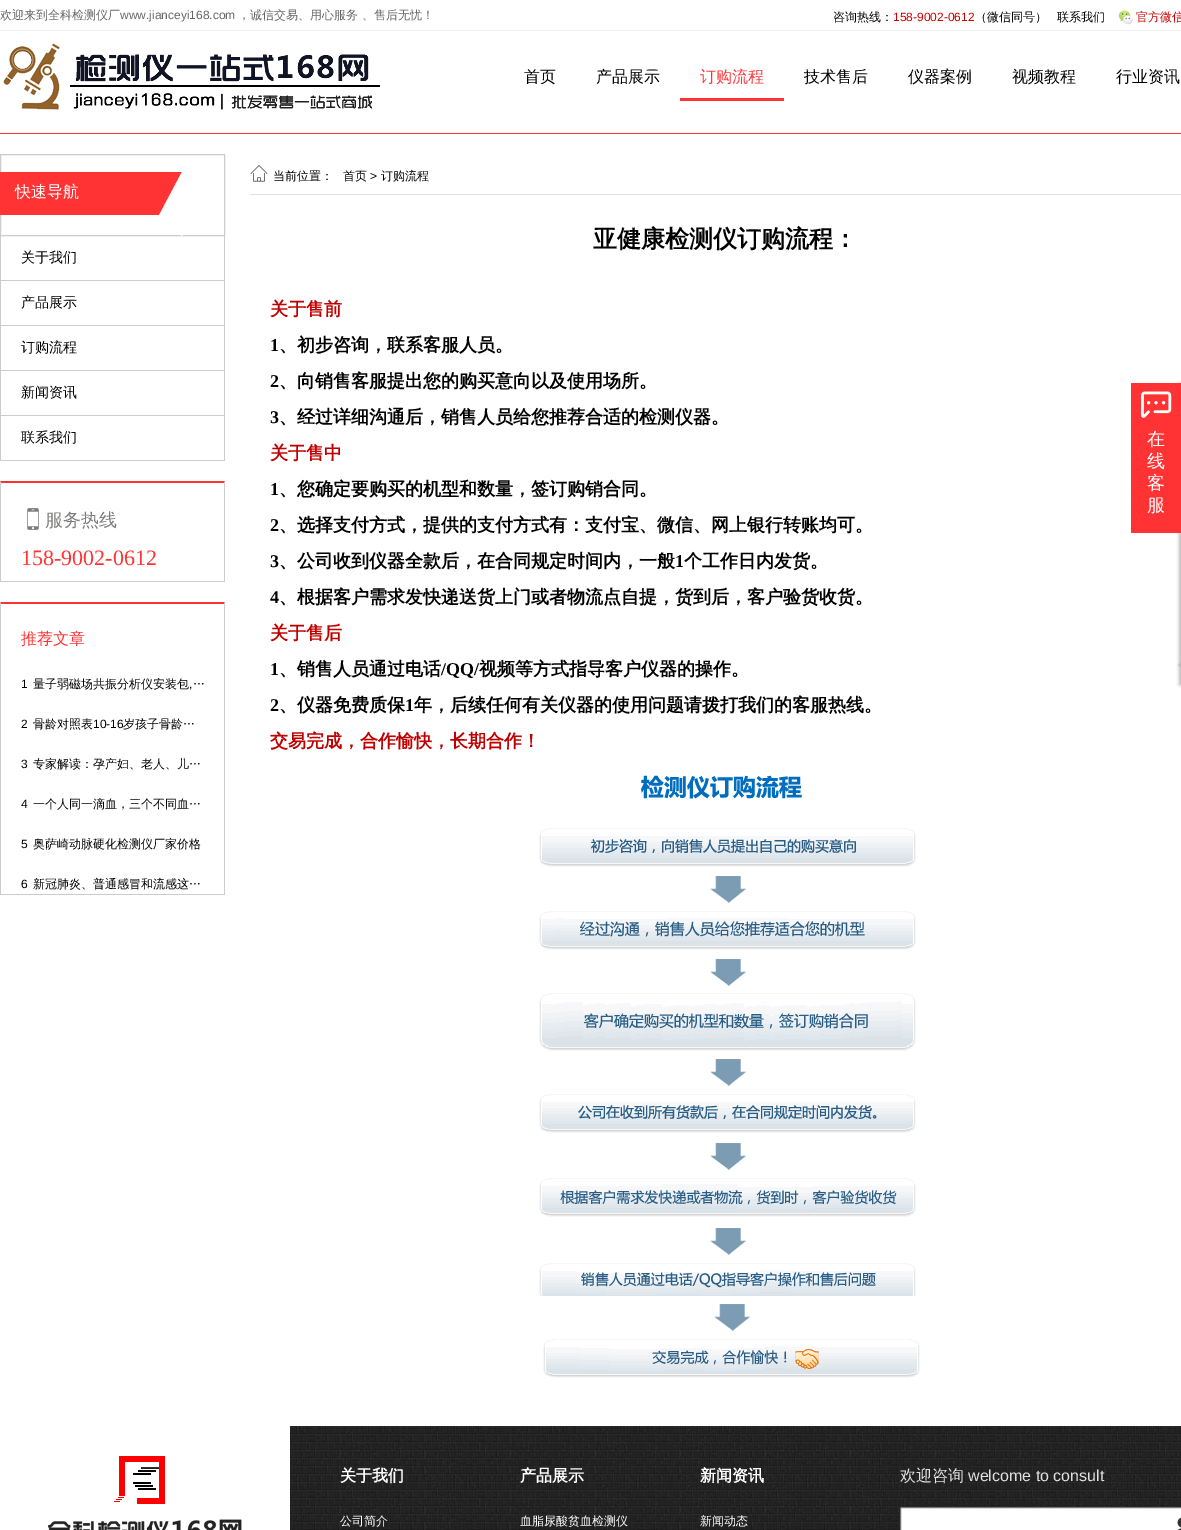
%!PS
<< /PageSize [1181 1530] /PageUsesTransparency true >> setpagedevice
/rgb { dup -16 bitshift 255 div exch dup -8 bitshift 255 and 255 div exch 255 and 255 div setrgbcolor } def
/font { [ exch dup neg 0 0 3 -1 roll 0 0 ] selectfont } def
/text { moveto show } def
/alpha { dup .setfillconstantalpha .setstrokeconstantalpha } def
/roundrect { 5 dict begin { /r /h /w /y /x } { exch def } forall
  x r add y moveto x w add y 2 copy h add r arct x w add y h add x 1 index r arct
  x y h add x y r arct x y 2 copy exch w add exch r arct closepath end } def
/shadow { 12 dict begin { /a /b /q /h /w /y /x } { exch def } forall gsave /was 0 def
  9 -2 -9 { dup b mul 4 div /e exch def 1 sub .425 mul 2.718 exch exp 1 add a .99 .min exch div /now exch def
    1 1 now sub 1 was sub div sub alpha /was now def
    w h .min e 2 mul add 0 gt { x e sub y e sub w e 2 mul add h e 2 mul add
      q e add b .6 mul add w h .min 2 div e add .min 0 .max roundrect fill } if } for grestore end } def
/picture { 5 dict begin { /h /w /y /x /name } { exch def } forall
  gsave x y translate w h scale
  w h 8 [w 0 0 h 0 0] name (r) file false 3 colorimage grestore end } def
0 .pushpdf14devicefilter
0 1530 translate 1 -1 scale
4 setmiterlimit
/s1 { /WenQuanYiZenHei-Medium 12 font 16#666666 rgb } def
/s2 { /LiberationSans-Regular 12 font 16#666666 rgb } def
/s3 { /WenQuanYiZenHei-Medium 12 font 16#000000 rgb } def
/s4 { /LiberationSans-Regular 12 font 16#CC0000 rgb } def
/s5 { /WenQuanYiZenHei-Medium 12 font 16#CC0000 rgb } def
/s6 { /WenQuanYiZenHei-Medium 16 font 16#000000 rgb } def
/s7 { /WenQuanYiZenHei-Medium 16 font 16#FF3333 rgb } def
/s8 { /WenQuanYiZenHei-Medium 16 font 16#FFFFFF rgb } def
/s9 { /WenQuanYiZenHei-Medium 14 font 16#000000 rgb } def
/s10 { /WenQuanYiZenHei-Medium 18 font 16#7E7D7C rgb } def
/s11 { /LiberationSerif-Regular 22 font 16#FF3333 rgb } def
/s12 { /LiberationSans-Regular 12 font 16#000000 rgb } def
/s13 { /WenQuanYiZenHei-Bold 24 font 16#000000 rgb } def
/s14 { /WenQuanYiZenHei-Bold 18 font 16#C00000 rgb } def
/s15 { /LiberationSerif-Bold 18 font 16#000000 rgb } def
/s16 { /WenQuanYiZenHei-Bold 18 font 16#000000 rgb } def
/s17 { /WenQuanYiZenHei-Medium 18 font 16#FFFFFF rgb } def
/s18 { /WenQuanYiZenHei-Bold 16 font 16#FFFFFF rgb } def
/s19 { /WenQuanYiZenHei-Medium 12 font 16#FFFFFF rgb } def
/s20 { /WenQuanYiZenHei-Medium 16 font 16#E0E0E0 rgb } def
/s21 { /LiberationSans-Regular 16 font 16#E0E0E0 rgb } def
16#FFFFFF rgb
0 0 1181 1530 rectfill
16#FF3333 rgb
0 133 1181 1 rectfill
16#F0F0F0 rgb
0 30 1181 1 rectfill
s1
(欢迎来到全科检测仪厂) 0 19 text
s2
(www.jianceyi168.com) 120 19 text
s1
(，诚信交易、用心服务 、售后无忧！) 238 19 text
s3
(咨询热线：) 833 21 text
s4
(158-9002-0612) 893 21 text
s3
(（微信同号）) 975 21 text
(联系我们) 1057 21 text
(pic1.raw) 1118 10 15 15 picture
s5
(官方微信) 1136 21 text
(pic2.raw) 3 43 377 67 picture
s6
(首页) 524 82 text
(产品展示) 596 82 text
16#FF3333 rgb
680 98 104 3 rectfill
(订购流程) 700 82 text
s6
(技术售后) 804 82 text
(仪器案例) 908 82 text
(视频教程) 1012 82 text
(行业资讯) 1116 82 text
16#CCCCCC rgb
0.5 154.5 224 81 rectstroke
16#FF3333 rgb
0 172 182 43 rectfill
16#FFFFFF rgb
184 168 moveto 210 183 lineto 182 236 lineto 156 221 lineto closepath fill
(快速导航) 15 197 text
16#CCCCCC rgb
224 236 1 225 rectfill
0 280 225 1 rectfill
0 236 1 45 rectfill
s9
(关于我们) 21 262 text
16#CCCCCC rgb
0 325 225 1 rectfill
0 281 1 45 rectfill
s9
(产品展示) 21 307 text
16#CCCCCC rgb
0 370 225 1 rectfill
0 326 1 45 rectfill
s9
(订购流程) 21 352 text
16#CCCCCC rgb
0 415 225 1 rectfill
0 371 1 45 rectfill
s9
(新闻资讯) 21 397 text
16#CCCCCC rgb
0 460 225 1 rectfill
0 416 1 45 rectfill
s9
(联系我们) 21 442 text
16#FF3333 rgb
0 481 moveto 225 481 lineto 224 483 lineto 1 483 lineto closepath fill
16#CCCCCC rgb
225 481 moveto 225 582 lineto 224 581 lineto 224 483 lineto closepath fill
0 581 225 1 rectfill
0 582 moveto 0 481 lineto 1 483 lineto 1 581 lineto closepath fill
(pic3.raw) 27 508 12 22 picture
s10
(服务热线) 45 526 text
s11
(158-9002-0612) 21 565 text
0 602 moveto 225 602 lineto 224 604 lineto 1 604 lineto closepath fill
16#CCCCCC rgb
225 602 moveto 225 895 lineto 224 894 lineto 224 604 lineto closepath fill
0 894 225 1 rectfill
0 895 moveto 0 602 lineto 1 604 lineto 1 894 lineto closepath fill
s7
(推荐文章) 21 644 text
s12
(1) 21 688 text
s3
(量子弱磁场共振分析仪安装包 …) 33 688 text
s12
(,) 189 688 text
(2) 21 728 text
s3
(骨龄对照表) 33 728 text
s12
(10-16) 93 728 text
s3
(岁孩子骨龄…) 123 728 text
s12
(3) 21 768 text
s3
(专家解读：孕产妇、老人、儿…) 33 768 text
s12
(4) 21 808 text
s3
(一个人同一滴血，三个不同血…) 33 808 text
s12
(5) 21 848 text
s3
(奥萨崎动脉硬化检测仪厂家价格) 33 848 text
s12
(6) 21 888 text
s3
(新冠肺炎、普通感冒和流感这…) 33 888 text
16#E1E1E1 rgb
250 194 931 1 rectfill
(pic4.raw) 250 165 18 17 picture
s3
(当前位置：) 273 180 text
(首页) 343 180 text
s12
(>) 370 180 text
s3
(订购流程) 381 180 text
s13
(亚健康检测仪订购流程：) 593 247 text
s14
(关于售前) 270 315 text
s15
(1) 270 351 text
s16
(、初步咨询，联系客服人员。) 279 351 text
s15
(2) 270 387 text
s16
(、向销售客服提出您的购买意向以及使用场所。) 279 387 text
s15
(3) 270 423 text
s16
(、经过详细沟通后，销售人员给您推荐合适的检测仪器。) 279 423 text
s14
(关于售中) 270 459 text
s15
(1) 270 495 text
s16
(、您确定要购买的机型和数量，签订购销合同。) 279 495 text
s15
(2) 270 531 text
s16
(、选择支付方式，提供的支付方式有：支付宝、微信、网上银行转账均可。) 279 531 text
s15
(3) 270 567 text
s16
(、公司收到仪器全款后，在合同规定时间内，一般) 279 567 text
s15
(1) 675 567 text
s16
(个工作日内发货。) 684 567 text
s15
(4) 270 603 text
s16
(、根据客户需求发快递送货上门或者物流点自提，货到后，客户验货收货。) 279 603 text
s14
(关于售后) 270 639 text
s15
(1) 270 675 text
s16
(、销售人员通过电话) 279 675 text
s15
(/QQ/) 441 675 text
s16
(视频等方式指导客户仪器的操作。) 479 675 text
s15
(2) 270 711 text
s16
(、仪器免费质保) 279 711 text
s15
(1) 405 711 text
s16
(年，后续任何有关仪器的使用问题请拨打我们的客服热线。) 414 711 text
s14
(交易完成，合作愉快，长期合作！) 270 747 text
(pic5.raw) 539 775 381 603 picture
16#000000 rgb
1179 383 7 282 0 1.5 0.25 shadow
16#FF3333 rgb
1131 383 50 150 rectfill
(pic6.raw) 1141 391 31 27 picture
s17
(在) 1147 445 text
(线) 1147 467 text
(客) 1147 489 text
(服) 1147 511 text
16#000000 rgb
1179 665 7 20 0 1.5 0.25 shadow
(pic7.raw) 290 1426 891 104 picture
(pic8.raw) 48 1456 194 74 picture
s18
(关于我们) 340 1481 text
s19
(公司简介) 340 1525 text
s18
(产品展示) 520 1481 text
s19
(血脂尿酸贫血检测仪) 520 1525 text
s18
(新闻资讯) 700 1481 text
s19
(新闻动态) 700 1525 text
s20
(欢迎咨询) 900 1481 text
s21
(welcome to consult) 968 1481 text
16#FFFFFF rgb
900.5 1507.5 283 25 1.5 roundrect gsave fill grestore
16#767676 rgb
stroke
(pic9.raw) 1177 1517 4 13 picture
.poppdf14devicefilter showpage
